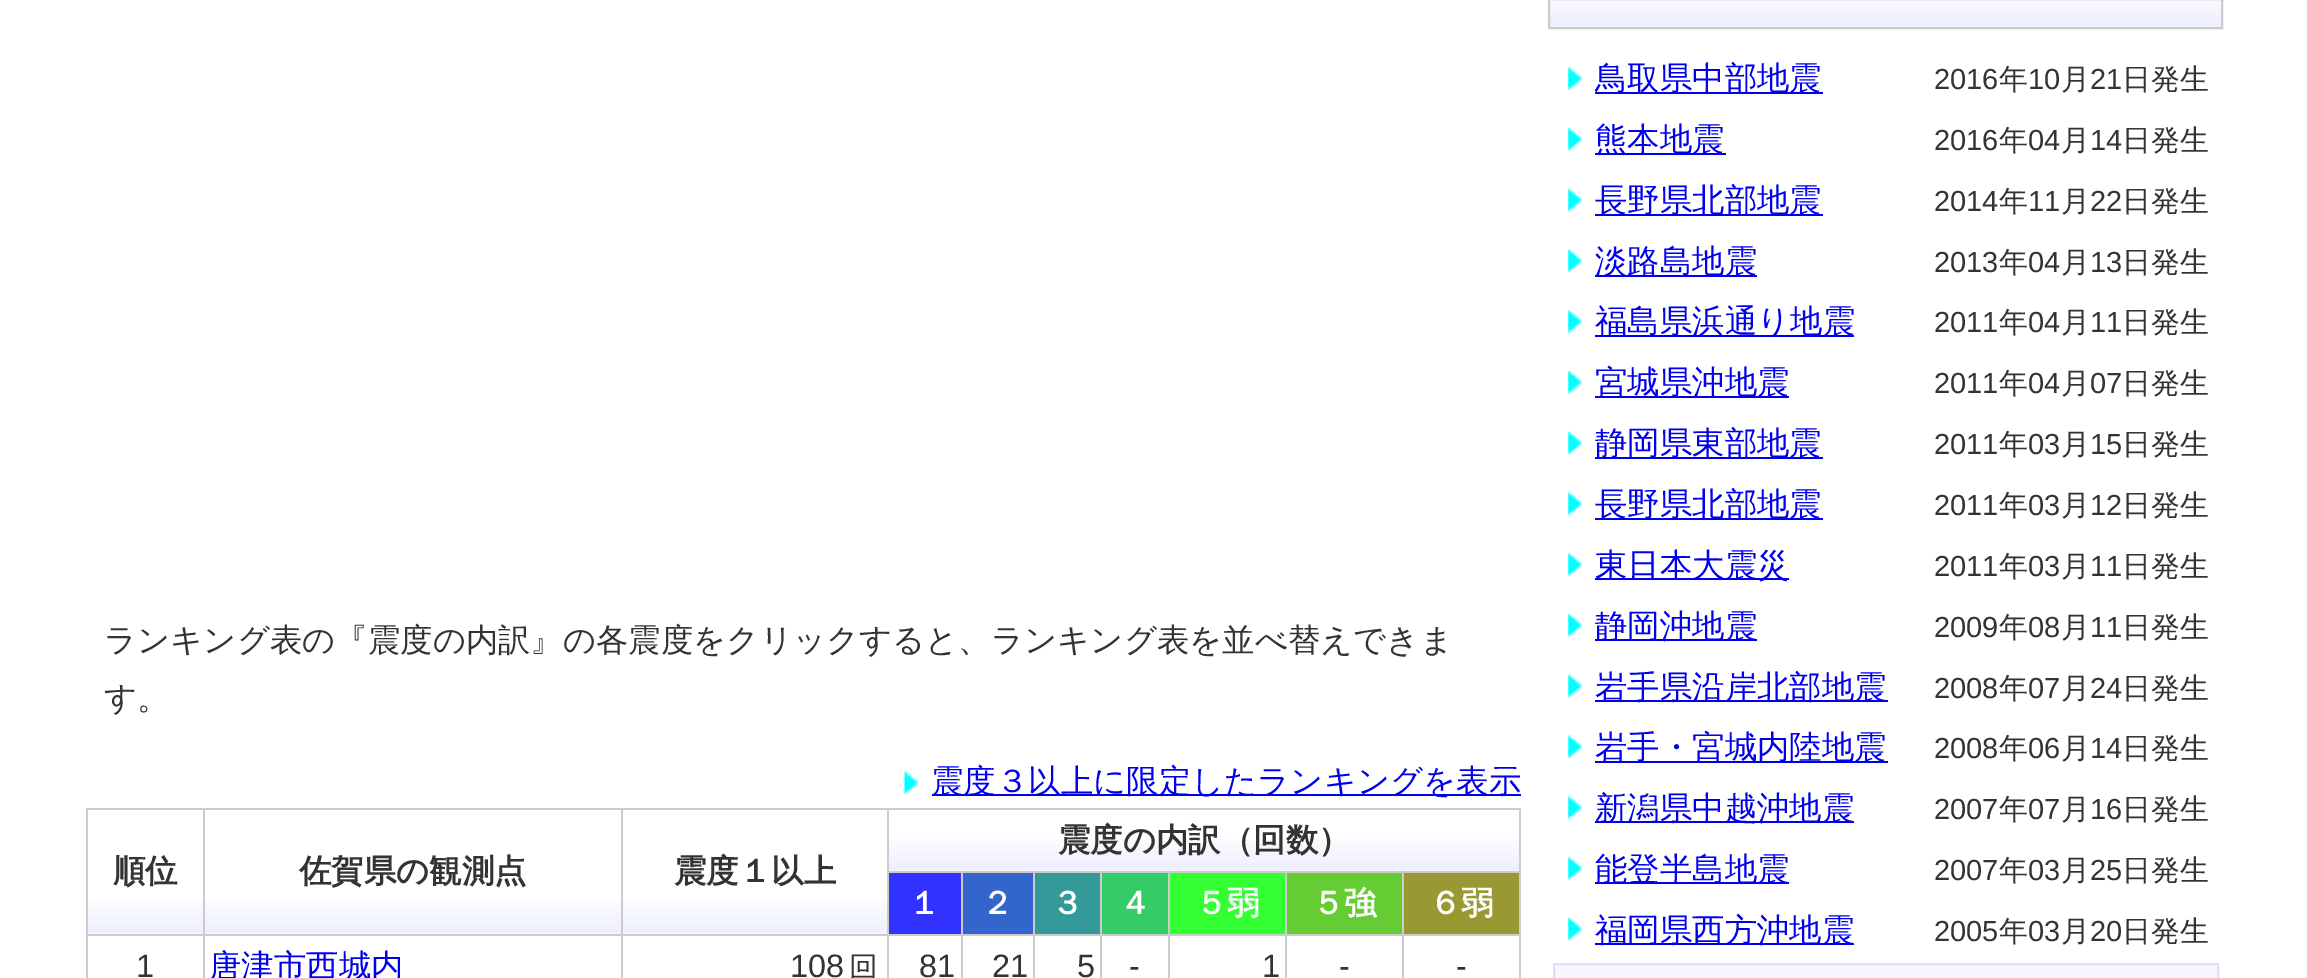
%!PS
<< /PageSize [2307 978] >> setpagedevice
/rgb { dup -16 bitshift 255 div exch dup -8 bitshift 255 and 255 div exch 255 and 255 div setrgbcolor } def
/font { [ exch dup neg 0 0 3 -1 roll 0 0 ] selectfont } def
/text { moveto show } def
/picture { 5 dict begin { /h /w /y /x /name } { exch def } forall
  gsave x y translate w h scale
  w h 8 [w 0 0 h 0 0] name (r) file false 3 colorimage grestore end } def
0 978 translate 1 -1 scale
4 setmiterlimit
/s1 { /WenQuanYiZenHei-Medium 32.4 font 16#333333 rgb } def
/s2 { /WenQuanYiZenHei-Medium 32.4 font 16#0000EE rgb } def
/s3 { /WenQuanYiZenHei-Bold 32.4 font 16#333333 rgb } def
/s4 { /WenQuanYiZenHei-Bold 32.4 font 16#FFFFFF rgb } def
/s5 { /LiberationSans-Regular 32.4 font 16#333333 rgb } def
/s6 { /WenQuanYiZenHei-Medium 29 font 16#333333 rgb } def
/s7 { /LiberationSans-Regular 29 font 16#333333 rgb } def
16#FFFFFF rgb
0 0 2307 978 rectfill
s1
(ランキング表の『震度の内訳』の各震度をクリックすると、ランキング表を並べ替えできま) 104 651 text
(す。) 104 709 text
(pic1.raw) 904 771 14 23 picture
16#0000EE rgb
932 794 589 2 rectfill
(震度３以上に限定したランキングを表示) 931 792 text
16#CCCCCC rgb
86 808 1435 2 rectfill
1519 808 2 170 rectfill
86 808 2 170 rectfill
(pic2.raw) 889 839 630 32 picture
s3
(震度の内訳（回数）) 1058 851 text
(pic3.raw) 88 902 115 32 picture
(順位) 113 882 text
(pic4.raw) 205 902 416 32 picture
16#CCCCCC rgb
1402 934 119 2 rectfill
1402 934 2 44 rectfill
1285 934 119 2 rectfill
1285 934 2 44 rectfill
1168 934 119 2 rectfill
1168 934 2 44 rectfill
1100 934 70 2 rectfill
1100 934 2 44 rectfill
1033 934 70 2 rectfill
1033 934 2 44 rectfill
961 934 74 2 rectfill
961 934 2 44 rectfill
887 934 76 2 rectfill
887 934 2 44 rectfill
621 934 268 2 rectfill
621 934 2 44 rectfill
203 934 420 2 rectfill
203 934 2 44 rectfill
86 934 119 2 rectfill
203 808 2 128 rectfill
s3
(佐賀県の観測点) 299 882 text
(pic5.raw) 623 902 264 32 picture
16#CCCCCC rgb
621 808 2 128 rectfill
s3
(震度１以上) 674 882 text
16#3333FF rgb
889 873 72 61 rectfill
16#CCCCCC rgb
1402 871 119 2 rectfill
1402 871 2 65 rectfill
1285 871 119 2 rectfill
1285 871 2 65 rectfill
1168 871 119 2 rectfill
1168 871 2 65 rectfill
1100 871 70 2 rectfill
1100 871 2 65 rectfill
1033 871 70 2 rectfill
1033 871 2 65 rectfill
961 871 74 2 rectfill
961 871 2 65 rectfill
887 871 76 2 rectfill
887 808 2 128 rectfill
s4
(１) 908 914 text
16#3366CC rgb
963 873 70 61 rectfill
s4
(２) 981 914 text
16#339999 rgb
1035 873 65 61 rectfill
s4
(３) 1051 914 text
16#33CC66 rgb
1102 873 66 61 rectfill
s4
(４) 1119 914 text
16#33FF33 rgb
1170 873 115 61 rectfill
s4
(５弱) 1195 914 text
16#66CC33 rgb
1287 873 115 61 rectfill
s4
(５強) 1312 914 text
16#999933 rgb
1404 873 115 61 rectfill
s4
(６弱) 1429 914 text
s5
(1) 136 977 text
s2
(唐津市西城内) 209 977 text
s5
(108) 790 977 text
s6
(回) 849 977 text
s5
(81) 919 977 text
(21) 992 977 text
(5) 1077 977 text
(-) 1129 977 text
(1) 1262 977 text
(-) 1339 977 text
(-) 1456 977 text
(pic6.raw) 1550 0 671 27 picture
16#CCCCCC rgb
2 setlinewidth
1549 -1 673 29 rectstroke
(pic7.raw) 1568 67 14 23 picture
16#0000EE rgb
1595 92 228 2 rectfill
s2
(鳥取県中部地震) 1595 89 text
s7
(2016) 1934 89 text
s6
(年) 1999 89 text
s7
(10) 2028 89 text
s6
(月) 2061 89 text
s7
(21) 2090 89 text
s6
(日発生) 2122 89 text
(pic8.raw) 1568 128 14 23 picture
16#0000EE rgb
1595 153 131 2 rectfill
s2
(熊本地震) 1595 150 text
s7
(2016) 1934 150 text
s6
(年) 1999 150 text
s7
(04) 2028 150 text
s6
(月) 2061 150 text
s7
(14) 2090 150 text
s6
(日発生) 2122 150 text
(pic9.raw) 1568 188 14 24 picture
16#0000EE rgb
1595 214 228 2 rectfill
s2
(長野県北部地震) 1595 211 text
s7
(2014) 1934 211 text
s6
(年) 1999 211 text
s7
(11) 2028 211 text
s6
(月) 2061 211 text
s7
(22) 2090 211 text
s6
(日発生) 2122 211 text
(pic10.raw) 1568 249 14 23 picture
16#0000EE rgb
1595 275 162 2 rectfill
s2
(淡路島地震) 1595 272 text
s7
(2013) 1934 272 text
s6
(年) 1999 272 text
s7
(04) 2028 272 text
s6
(月) 2061 272 text
s7
(13) 2090 272 text
s6
(日発生) 2122 272 text
(pic7.raw) 1568 310 14 23 picture
16#0000EE rgb
1595 335 259 2 rectfill
s2
(福島県浜通り地震) 1595 332 text
s7
(2011) 1934 332 text
s6
(年) 1999 332 text
s7
(04) 2028 332 text
s6
(月) 2061 332 text
s7
(11) 2090 332 text
s6
(日発生) 2122 332 text
(pic8.raw) 1568 371 14 23 picture
16#0000EE rgb
1595 396 194 2 rectfill
s2
(宮城県沖地震) 1595 393 text
s7
(2011) 1934 393 text
s6
(年) 1999 393 text
s7
(04) 2028 393 text
s6
(月) 2061 393 text
s7
(07) 2090 393 text
s6
(日発生) 2122 393 text
(pic9.raw) 1568 431 14 24 picture
16#0000EE rgb
1595 457 228 2 rectfill
s2
(静岡県東部地震) 1595 454 text
s7
(2011) 1934 454 text
s6
(年) 1999 454 text
s7
(03) 2028 454 text
s6
(月) 2061 454 text
s7
(15) 2090 454 text
s6
(日発生) 2122 454 text
(pic10.raw) 1568 492 14 23 picture
16#0000EE rgb
1595 518 228 2 rectfill
s2
(長野県北部地震) 1595 515 text
s7
(2011) 1934 515 text
s6
(年) 1999 515 text
s7
(03) 2028 515 text
s6
(月) 2061 515 text
s7
(12) 2090 515 text
s6
(日発生) 2122 515 text
(pic7.raw) 1568 553 14 23 picture
16#0000EE rgb
1595 578 194 2 rectfill
s2
(東日本大震災) 1595 576 text
s7
(2011) 1934 576 text
s6
(年) 1999 576 text
s7
(03) 2028 576 text
s6
(月) 2061 576 text
s7
(11) 2090 576 text
s6
(日発生) 2122 576 text
(pic8.raw) 1568 614 14 23 picture
16#0000EE rgb
1595 639 162 2 rectfill
s2
(静岡沖地震) 1595 637 text
s7
(2009) 1934 637 text
s6
(年) 1999 637 text
s7
(08) 2028 637 text
s6
(月) 2061 637 text
s7
(11) 2090 637 text
s6
(日発生) 2122 637 text
(pic9.raw) 1568 674 14 24 picture
16#0000EE rgb
1595 700 293 2 rectfill
s2
(岩手県沿岸北部地震) 1595 698 text
s7
(2008) 1934 698 text
s6
(年) 1999 698 text
s7
(07) 2028 698 text
s6
(月) 2061 698 text
s7
(24) 2090 698 text
s6
(日発生) 2122 698 text
(pic10.raw) 1568 735 14 23 picture
16#0000EE rgb
1595 761 293 2 rectfill
s2
(岩手・宮城内陸地震) 1595 758 text
s7
(2008) 1934 758 text
s6
(年) 1999 758 text
s7
(06) 2028 758 text
s6
(月) 2061 758 text
s7
(14) 2090 758 text
s6
(日発生) 2122 758 text
(pic7.raw) 1568 796 14 23 picture
16#0000EE rgb
1595 821 259 2 rectfill
s2
(新潟県中越沖地震) 1595 819 text
s7
(2007) 1934 819 text
s6
(年) 1999 819 text
s7
(07) 2028 819 text
s6
(月) 2061 819 text
s7
(16) 2090 819 text
s6
(日発生) 2122 819 text
(pic8.raw) 1568 857 14 23 picture
16#0000EE rgb
1595 882 194 2 rectfill
s2
(能登半島地震) 1595 880 text
s7
(2007) 1934 880 text
s6
(年) 1999 880 text
s7
(03) 2028 880 text
s6
(月) 2061 880 text
s7
(25) 2090 880 text
s6
(日発生) 2122 880 text
(pic9.raw) 1568 917 14 24 picture
16#0000EE rgb
1595 943 259 2 rectfill
s2
(福岡県西方沖地震) 1595 941 text
s7
(2005) 1934 941 text
s6
(年) 1999 941 text
s7
(03) 2028 941 text
s6
(月) 2061 941 text
s7
(20) 2090 941 text
s6
(日発生) 2122 941 text
16#F6F6FF rgb
1554 964 moveto 2218 964 lineto 2218 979 lineto 1554 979 lineto closepath gsave fill grestore
16#DDDDFF rgb
stroke
showpage
